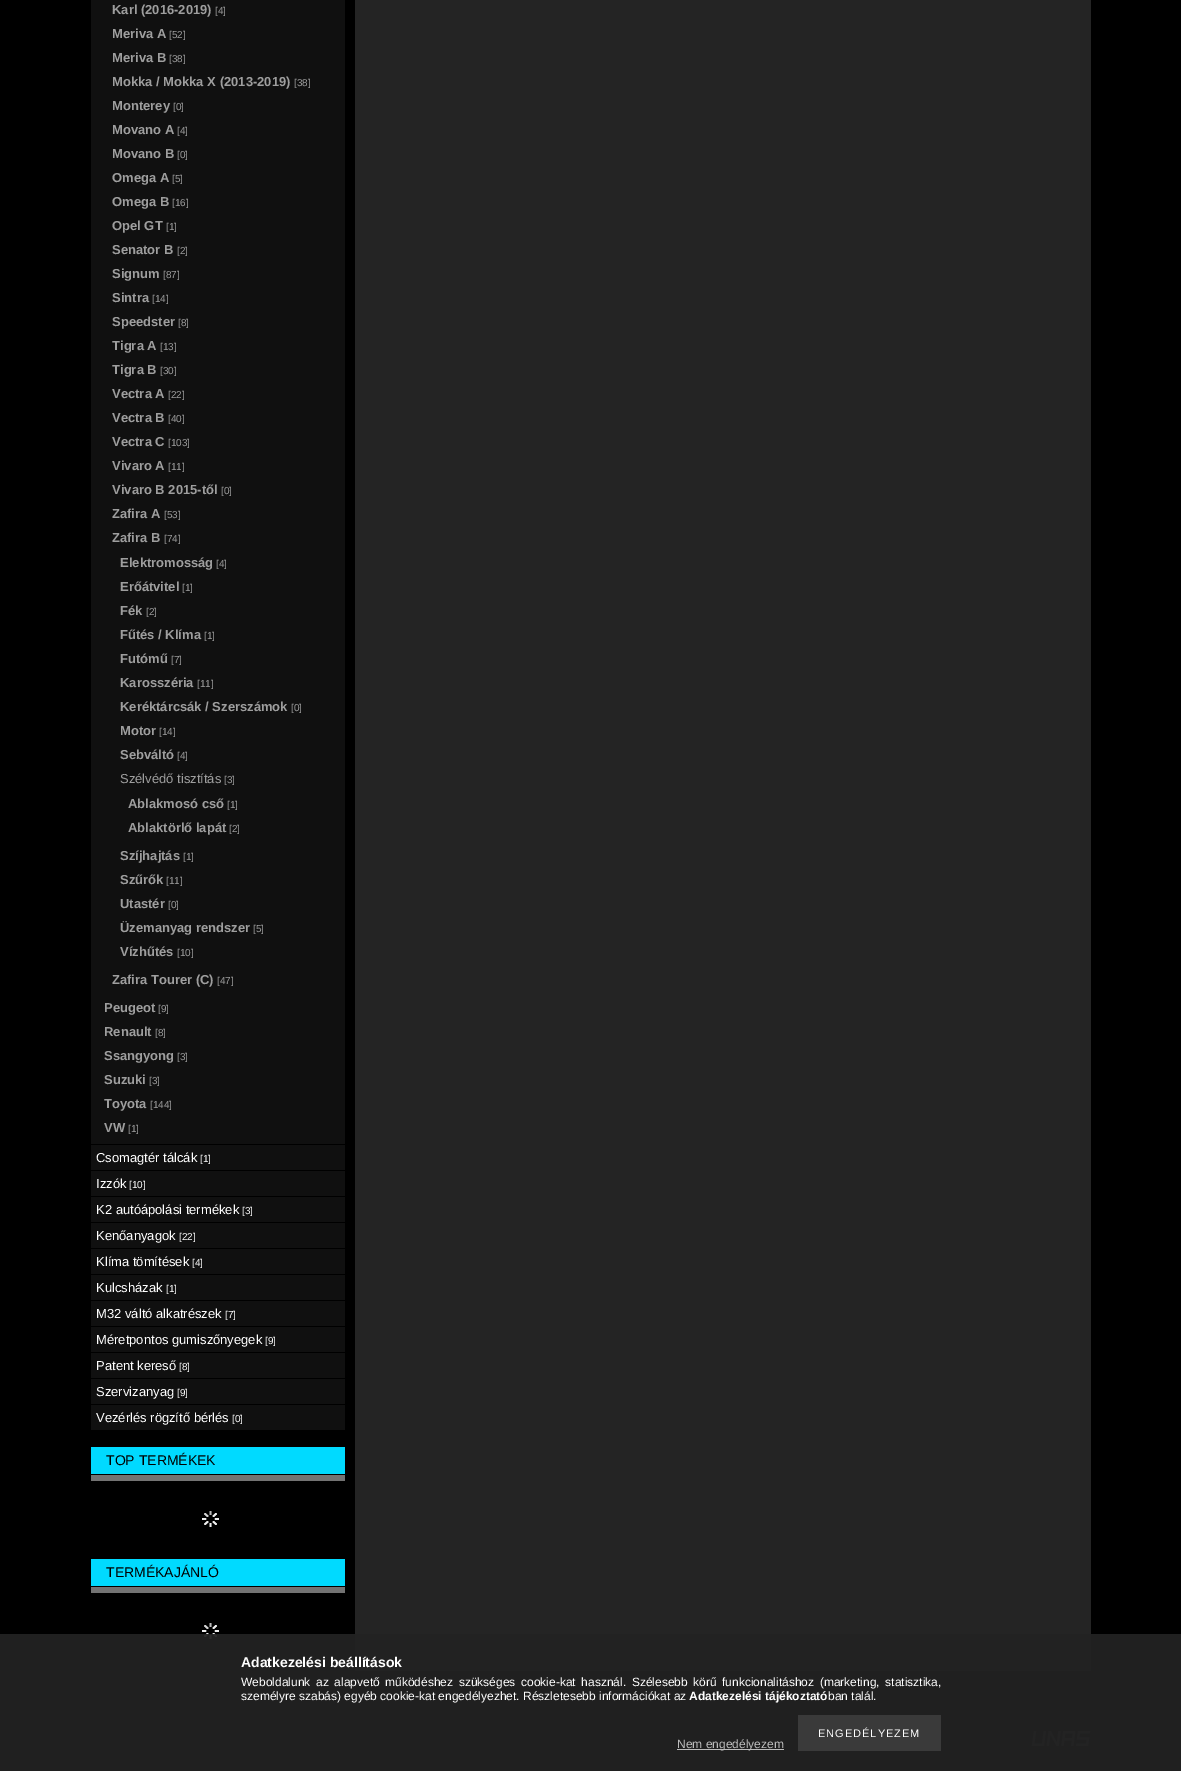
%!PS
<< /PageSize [1181 1771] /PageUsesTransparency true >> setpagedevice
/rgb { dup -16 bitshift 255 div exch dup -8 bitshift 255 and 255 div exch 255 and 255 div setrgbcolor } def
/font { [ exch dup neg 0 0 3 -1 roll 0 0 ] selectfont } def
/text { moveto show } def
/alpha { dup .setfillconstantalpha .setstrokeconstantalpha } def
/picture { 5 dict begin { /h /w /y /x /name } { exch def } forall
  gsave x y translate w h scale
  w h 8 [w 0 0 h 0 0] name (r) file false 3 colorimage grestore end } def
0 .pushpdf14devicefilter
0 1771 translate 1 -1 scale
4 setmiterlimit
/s1 { /LiberationSans-Bold 13 font 16#9E9E9E rgb } def
/s2 { /LiberationSans-Regular 10 font 16#9E9E9E rgb } def
/s3 { /LiberationSans-Regular 13 font 16#9E9E9E rgb } def
/s4 { /LiberationSans-Regular 13 font 16#FFFFFF rgb } def
/s5 { /LiberationSans-Regular 10 font 16#FFFFFF rgb } def
/s6 { /LiberationSans-Regular 14 font 16#000000 rgb } def
/s7 { /LiberationSans-Bold 14 font 16#FFFFFF rgb } def
/s8 { /LiberationSans-Regular 12 font 16#FFFFFF rgb } def
/s9 { /LiberationSans-Bold 12 font 16#FFFFFF rgb } def
/s10 { /LiberationSans-Regular 12 font 16#BCBCBC rgb } def
16#000000 rgb
0 0 1181 1771 rectfill
16#242424 rgb
355 0 736 1671 rectfill
16#101010 rgb
91 0 254 1144 rectfill
s1
(Karl \(2016-2019\)) 112 14 text
s2
([4]) 215 14 text
s1
(Meriva A) 112 38 text
s2
([52]) 169 38 text
s1
(Meriva B) 112 62 text
s2
([38]) 169 62 text
s1
(Mokka / Mokka X \(2013-2019\)) 112 86 text
s2
([38]) 294 86 text
s1
(Monterey) 112 110 text
s2
([0]) 173 110 text
s1
(Movano A) 112 134 text
s2
([4]) 177 134 text
s1
(Movano B) 112 158 text
s2
([0]) 177 158 text
s1
(Omega A) 112 182 text
s2
([5]) 172 182 text
s1
(Omega B) 112 206 text
s2
([16]) 172 206 text
s1
(Opel GT) 112 230 text
s2
([1]) 166 230 text
s1
(Senator B) 112 254 text
s2
([2]) 177 254 text
s1
(Signum) 112 278 text
s2
([87]) 163 278 text
s1
(Sintra) 112 302 text
s2
([14]) 152 302 text
s1
(Speedster) 112 326 text
s2
([8]) 178 326 text
s1
(Tigra A) 112 350 text
s2
([13]) 160 350 text
s1
(Tigra B) 112 374 text
s2
([30]) 160 374 text
s1
(Vectra A) 112 398 text
s2
([22]) 168 398 text
s1
(Vectra B) 112 422 text
s2
([40]) 168 422 text
s1
(Vectra C) 112 446 text
s2
([103]) 168 446 text
s1
(Vivaro A) 112 470 text
s2
([11]) 168 470 text
s1
(Vivaro B 2015-től) 112 494 text
s2
([0]) 221 494 text
s1
(Zafira A) 112 518 text
s2
([53]) 164 518 text
s1
(Zafira B) 112 542 text
s2
([74]) 164 542 text
s1
(Elektromosság) 120 567 text
s2
([4]) 216 567 text
s1
(Erőátvitel) 120 591 text
s2
([1]) 182 591 text
s1
(Fék) 120 615 text
s2
([2]) 146 615 text
s1
(Fűtés / Klíma) 120 639 text
s2
([1]) 204 639 text
s1
(Futómű) 120 663 text
s2
([7]) 171 663 text
s1
(Karosszéria) 120 687 text
s2
([11]) 197 687 text
s1
(Keréktárcsák / Szerszámok) 120 711 text
s2
([0]) 291 711 text
s1
(Motor) 120 735 text
s2
([14]) 159 735 text
s1
(Sebváltó) 120 759 text
s2
([4]) 177 759 text
s3
(Szélvédő tisztítás) 120 783 text
s2
([3]) 224 783 text
s1
(Ablakmosó cső) 128 808 text
s2
([1]) 227 808 text
s1
(Ablaktörlő lapát) 128 832 text
s2
([2]) 229 832 text
s1
(Szíjhajtás) 120 860 text
s2
([1]) 183 860 text
s1
(Szűrők) 120 884 text
s2
([11]) 166 884 text
s1
(Utastér) 120 908 text
s2
([0]) 168 908 text
s1
(Üzemanyag rendszer) 120 932 text
s2
([5]) 253 932 text
s1
(Vízhűtés) 120 956 text
s2
([10]) 177 956 text
s1
(Zafira Tourer \(C\)) 112 984 text
s2
([47]) 217 984 text
s1
(Peugeot) 104 1012 text
s2
([9]) 158 1012 text
s1
(Renault) 104 1036 text
s2
([8]) 155 1036 text
s1
(Ssangyong) 104 1060 text
s2
([3]) 177 1060 text
s1
(Suzuki) 104 1084 text
s2
([3]) 149 1084 text
s1
(Toyota) 104 1108 text
s2
([144]) 150 1108 text
s1
(VW) 104 1132 text
s2
([1]) 128 1132 text
16#101010 rgb
91 1145 254 25 rectfill
s4
(Csomagtér tálcák) 96 1162 text
s5
([1]) 200 1162 text
16#101010 rgb
91 1171 254 25 rectfill
s4
(Izzók) 96 1188 text
s5
([10]) 129 1188 text
16#101010 rgb
91 1197 254 25 rectfill
s4
(K2 autóápolási termékek) 96 1214 text
s5
([3]) 242 1214 text
16#101010 rgb
91 1223 254 25 rectfill
s4
(Kenőanyagok) 96 1240 text
s5
([22]) 179 1240 text
16#101010 rgb
91 1249 254 25 rectfill
s4
(Klíma tömítések) 96 1266 text
s5
([4]) 192 1266 text
16#101010 rgb
91 1275 254 25 rectfill
s4
(Kulcsházak) 96 1292 text
s5
([1]) 166 1292 text
16#101010 rgb
91 1301 254 25 rectfill
s4
(M32 váltó alkatrészek) 96 1318 text
s5
([7]) 225 1318 text
16#101010 rgb
91 1327 254 25 rectfill
s4
(Méretpontos gumiszőnyegek) 96 1344 text
s5
([9]) 265 1344 text
16#101010 rgb
91 1353 254 25 rectfill
s4
(Patent kereső) 96 1370 text
s5
([8]) 179 1370 text
16#101010 rgb
91 1379 254 25 rectfill
s4
(Szervizanyag) 96 1396 text
s5
([9]) 177 1396 text
16#101010 rgb
91 1405 254 25 rectfill
s4
(Vezérlés rögzítő bérlés) 96 1422 text
s5
([0]) 232 1422 text
16#00DAFF rgb
91 1447 254 27 rectfill
s6
(TOP TERMÉKEK) 106 1465 text
16#737373 rgb
91 1475 254 6 rectfill
(pic1.raw) 202 1511 17 16 picture
16#00DAFF rgb
91 1559 254 27 rectfill
s6
(TERMÉKAJÁNLÓ) 106 1577 text
16#737373 rgb
91 1587 254 6 rectfill
(pic1.raw) 202 1623 17 16 picture
(pic2.raw) 1031 1731 60 15 picture
0.95 alpha
16#222222 rgb
0 1634 1181 137 rectfill
1 alpha
s7
(Adatkezelési beállítások) 241 1667 text
/LiberationSans-Regular 12 font
241 1686 moveto 2.25 0 32 (Weboldalunk az alapvető működéshez szükséges cookie-kat használ. Szélesebb körű funkcionalitáshoz \(marketing, statisztika,) widthshow
(személyre szabás\) egyéb cookie-kat engedélyezhet. Részletesebb információkat az) 241 1700 text
s9
(Adatkezelési tájékoztató) 689 1700 text
s8
(ban talál.) 828 1700 text
16#3A3A3A rgb
798 1715 143 36 rectfill
/LiberationSans-Regular 11 font
16#FFFFFF rgb
818 1737 moveto 1 0 (ENGEDÉLYEZEM) ashow
16#BCBCBC rgb
677 1749 107 1 rectfill
s10
(Nem engedélyezem) 677 1748 text
.poppdf14devicefilter showpage
